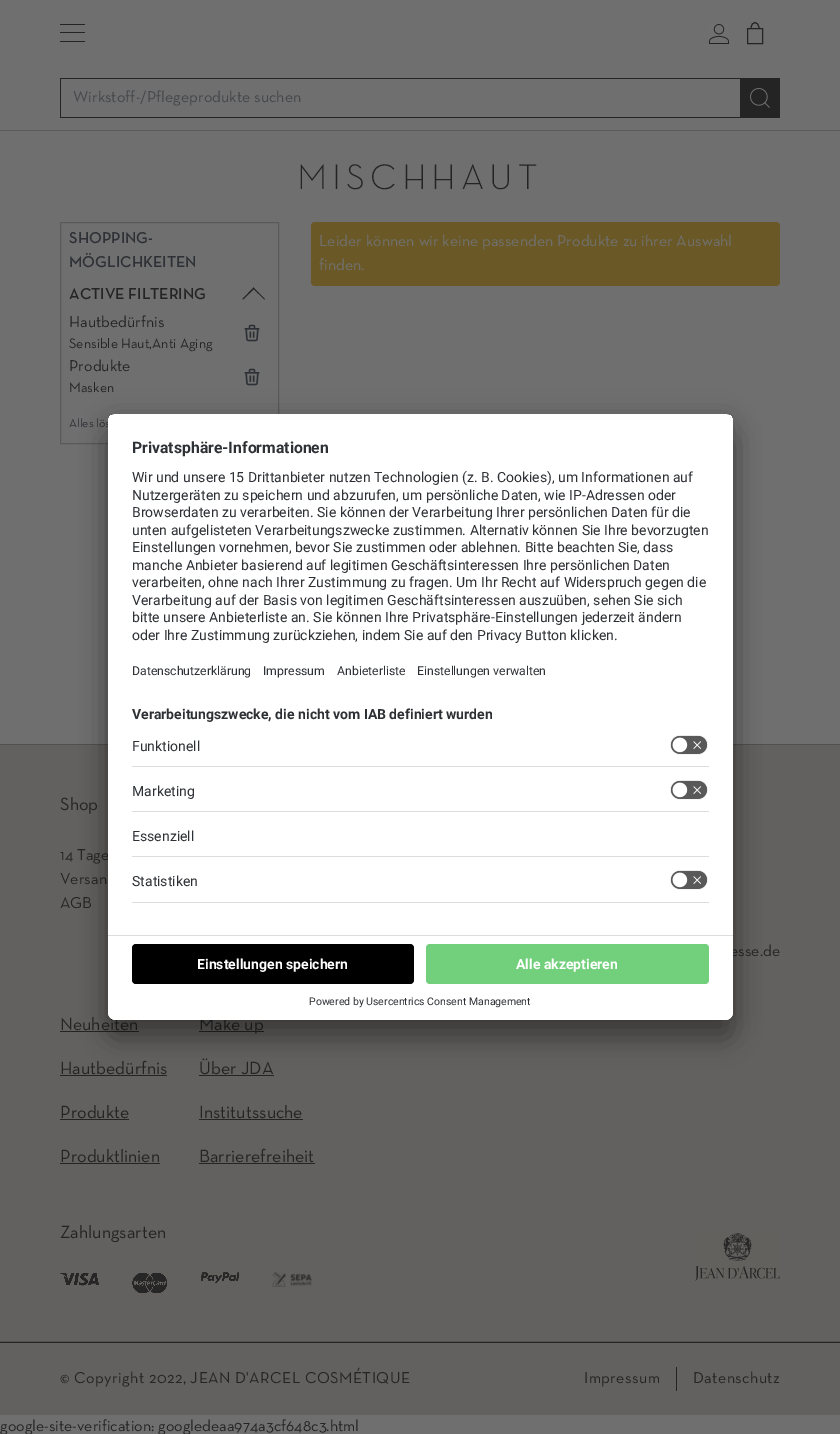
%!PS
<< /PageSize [840 1434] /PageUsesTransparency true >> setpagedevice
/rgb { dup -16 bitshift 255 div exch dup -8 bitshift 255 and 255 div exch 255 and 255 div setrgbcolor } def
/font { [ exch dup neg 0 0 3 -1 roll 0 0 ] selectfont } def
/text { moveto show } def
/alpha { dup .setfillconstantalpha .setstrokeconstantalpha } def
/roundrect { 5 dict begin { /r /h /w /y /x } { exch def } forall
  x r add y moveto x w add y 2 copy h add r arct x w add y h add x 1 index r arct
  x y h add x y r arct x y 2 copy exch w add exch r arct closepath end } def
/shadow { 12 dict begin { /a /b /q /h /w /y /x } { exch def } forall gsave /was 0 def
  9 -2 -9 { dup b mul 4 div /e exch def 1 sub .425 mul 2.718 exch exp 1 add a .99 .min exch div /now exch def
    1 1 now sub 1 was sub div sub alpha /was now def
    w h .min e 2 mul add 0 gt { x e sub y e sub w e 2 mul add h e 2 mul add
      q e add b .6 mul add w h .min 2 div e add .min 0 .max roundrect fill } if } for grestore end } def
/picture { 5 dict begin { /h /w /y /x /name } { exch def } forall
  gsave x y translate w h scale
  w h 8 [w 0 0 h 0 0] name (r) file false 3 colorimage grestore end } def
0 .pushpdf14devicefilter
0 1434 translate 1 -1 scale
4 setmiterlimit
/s1 { /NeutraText-Regular 16 font 16#44464A rgb } def
/s2 { /NeutraText-Medium 16 font 16#2D3034 rgb } def
/s3 { /NeutraText-Medium 16 font 16#242424 rgb } def
/s4 { /NeutraText-Regular 16 font 16#242424 rgb } def
/s5 { /NeutraText-Regular 14 font 16#242424 rgb } def
/s6 { /NeutraText-Regular 12 font 16#2D3034 rgb } def
/s7 { /NeutraText-Regular 16 font 16#707070 rgb } def
/s8 { /NeutraText-Regular 18 font 16#242424 rgb } def
/s9 { /Roboto-Bold 15.75 font 16#2D3034 rgb } def
/s10 { /Roboto-Regular 14 font 16#2D3034 rgb } def
/s11 { /Roboto-Regular 12.25 font 16#2D3034 rgb } def
/s12 { /Roboto-Bold 14 font 16#2D3034 rgb } def
/s13 { /Roboto-Bold 14 font 16#FFFFFF rgb } def
/s14 { /Roboto-Regular 10.5 font 16#2D3034 rgb } def
16#6F6F6F rgb
0 0 840 1434 rectfill
16#5A5A5A rgb
0 130 840 1 rectfill
16#242424 rgb
60 24 25 1 rectfill
60 32 25 1 rectfill
60 41 25 1 rectfill
(pic1.raw) 709 24 20 20 picture
747.5 28.5 15 15 rectstroke
751 28.5 moveto 751 20.5 759 20.5 759 28.5 curveto stroke
60 78 680 1 rectfill
60 117 680 1 rectfill
60 78 1 40 rectfill
s1
(Wirkstoff-/Pflegeprodukte suchen) 73 102 text
16#242424 rgb
740 78 40 40 rectfill
(pic2.raw) 750 88 20 20 picture
/NeutraText-Light 36 font
297 189 moveto 5 0 (MISCHHAUT) ashow
16#5A5A5A rgb
60.5 222.5 218 221 rectstroke
s2
(SHOPPING-) 69 243 text
(MÖGLICHKEITEN) 69 267 text
s3
(ACTIVE FILTERING) 69 299 text
243 299.5 moveto 242.5 299 lineto 253.5 287.5 lineto 254.5 288.5 lineto closepath fill
264.5 299.5 moveto 253 288.5 lineto 253.5 287.5 lineto 265 299 lineto closepath fill
s4
(Hautbedürfnis) 69 327 text
s5
(Sensible Haut,Anti Aging) 69 348 text
(pic3.raw) 244 324 16 18 picture
s4
(Produkte) 69 371 text
s5
(Masken) 69 392 text
(pic3.raw) 244 368 16 18 picture
s6
(Alles lös) 69 427 text
16#6A5926 rgb
311 222 469 64 4 roundrect fill
s7
(Leider können wir keine passenden Produkte zu ihrer Auswahl) 319 246 text
(finden.) 319 270 text
16#63615F rgb
0 745 840 596 rectfill
s8
(Shop) 60 810 text
s4
(14 Tage) 60 860 text
(Versan) 60 884 text
(AGB) 60 908 text
16#515151 rgb
0 744 840 1 rectfill
s4
(esse.de) 730 956 text
16#515151 rgb
0 1341 840 1 rectfill
s8
(Neuheiten) 60 1030 text
60 1031 79 1 rectfill
(Hautbedürfnis) 60 1074 text
60 1075 107 1 rectfill
(Produkte) 60 1118 text
60 1119 69 1 rectfill
(Produktlinien) 60 1162 text
60 1163 100 1 rectfill
199 1031 65 1 rectfill
(Make up) 199 1030 text
(Über JDA) 199 1074 text
199 1075 75 1 rectfill
(Institutssuche) 199 1118 text
199 1119 104 1 rectfill
(Barrierefreiheit) 199 1162 text
199 1163 116 1 rectfill
(Zahlungsarten) 60 1238 text
(pic4.raw) 60 1273 39 13 picture
(pic5.raw) 132 1273 35 21 picture
(pic6.raw) 201 1272 38 11 picture
(pic7.raw) 272 1272 40 15 picture
(pic8.raw) 695 1233 85 48 picture
16#63615F rgb
0 1343 840 72 rectfill
16#242424 rgb
0 1342 840 1 rectfill
/NeutraText-Regular 16 font
60 1383 moveto 0.4 0 (© Copyright 2022, JEAN D'ARCEL COSMÉTIQUE) ashow
676 1367 1 24 rectfill
584 1383 moveto 0.4 0 (Impressum) ashow
693 1383 moveto 0.4 0 (Datenschutz) ashow
16#000000 rgb
108 434 625 606 8 14 0.3 shadow
108 419 625 606 8 13 0.22 shadow
16#FFFFFF rgb
108 414 625 606 8 roundrect fill
gsave
108 414 625 606 8 roundrect clip newpath
116 414 moveto 725 414 lineto 729.5 414 733 417.5 733 422 curveto 733 935 lineto 108 935 lineto 108 422 lineto 108 417.5 111.5 414 116 414 curveto closepath clip newpath
108 415 625 520 rectfill
108 415 625 279 rectfill
grestore
s9
(Privatsphäre-Informationen) 132 453 text
s10
(Wir und unsere 15 Drittanbieter nutzen Technologien \(z. B. Cookies\), um Informationen auf) 132 482 text
(Nutzergeräten zu speichern und abzurufen, um persönliche Daten, wie IP-Adressen oder) 132 500 text
(Browserdaten zu verarbeiten. Sie können der Verarbeitung Ihrer persönlichen Daten für die) 132 517 text
(unten aufgelisteten Verarbeitungszwecke zustimmen. Alternativ können Sie Ihre bevorzugten) 132 535 text
(Einstellungen vornehmen, bevor Sie zustimmen oder ablehnen. Bitte beachten Sie, dass) 132 552 text
(manche Anbieter basierend auf legitimen Geschäftsinteressen Ihre persönlichen Daten) 132 570 text
(verarbeiten, ohne nach Ihrer Zustimmung zu fragen. Um Ihr Recht auf Widerspruch gegen die) 132 587 text
(Verarbeitung auf der Basis von legitimen Geschäftsinteressen auszuüben, sehen Sie sich) 132 605 text
(bitte unsere Anbieterliste an. Sie können Ihre Privatsphäre-Einstellungen jederzeit ändern) 132 622 text
(oder Ihre Zustimmung zurückziehen, indem Sie auf den Privacy Button klicken.) 132 640 text
s11
(Datenschutzerklärung) 132 675 text
(Impressum) 263 675 text
(Anbieterliste) 337 675 text
(Einstellungen verwalten) 417 675 text
s12
(Verarbeitungszwecke, die nicht vom IAB definiert wurden) 132 719 text
16#DDDDDD rgb
132 766 577 1 rectfill
s10
(Funktionell) 132 751 text
(pic9.raw) 670 735 38 20 picture
16#DDDDDD rgb
132 811 577 1 rectfill
s10
(Marketing) 132 796 text
(pic9.raw) 670 780 38 20 picture
16#DDDDDD rgb
132 856 577 1 rectfill
s10
(Essenziell) 132 841 text
16#DDDDDD rgb
132 902 577 1 rectfill
s10
(Statistiken) 132 886 text
(pic9.raw) 670 870 38 20 picture
16#FFFFFF rgb
108 935 moveto 733 935 lineto 733 1012 lineto 733 1016.5 729.5 1020 725 1020 curveto 116 1020 lineto 111.5 1020 108 1016.5 108 1012 curveto closepath fill
16#DDDDDD rgb
108 935 625 1 rectfill
16#000000 rgb
132 944 282 40 4 roundrect fill
s13
(Einstellungen speichern) 197 969 text
16#72D07C rgb
426 944 283 40 4 roundrect fill
s13
(Alle akzeptieren) 516 969 text
s14
(Powered by Usercentrics Consent Management) 309 1005 text
s4
(google-site-verification: googledeaa974a3cf648c3.html) 0 1431 text
.poppdf14devicefilter showpage
